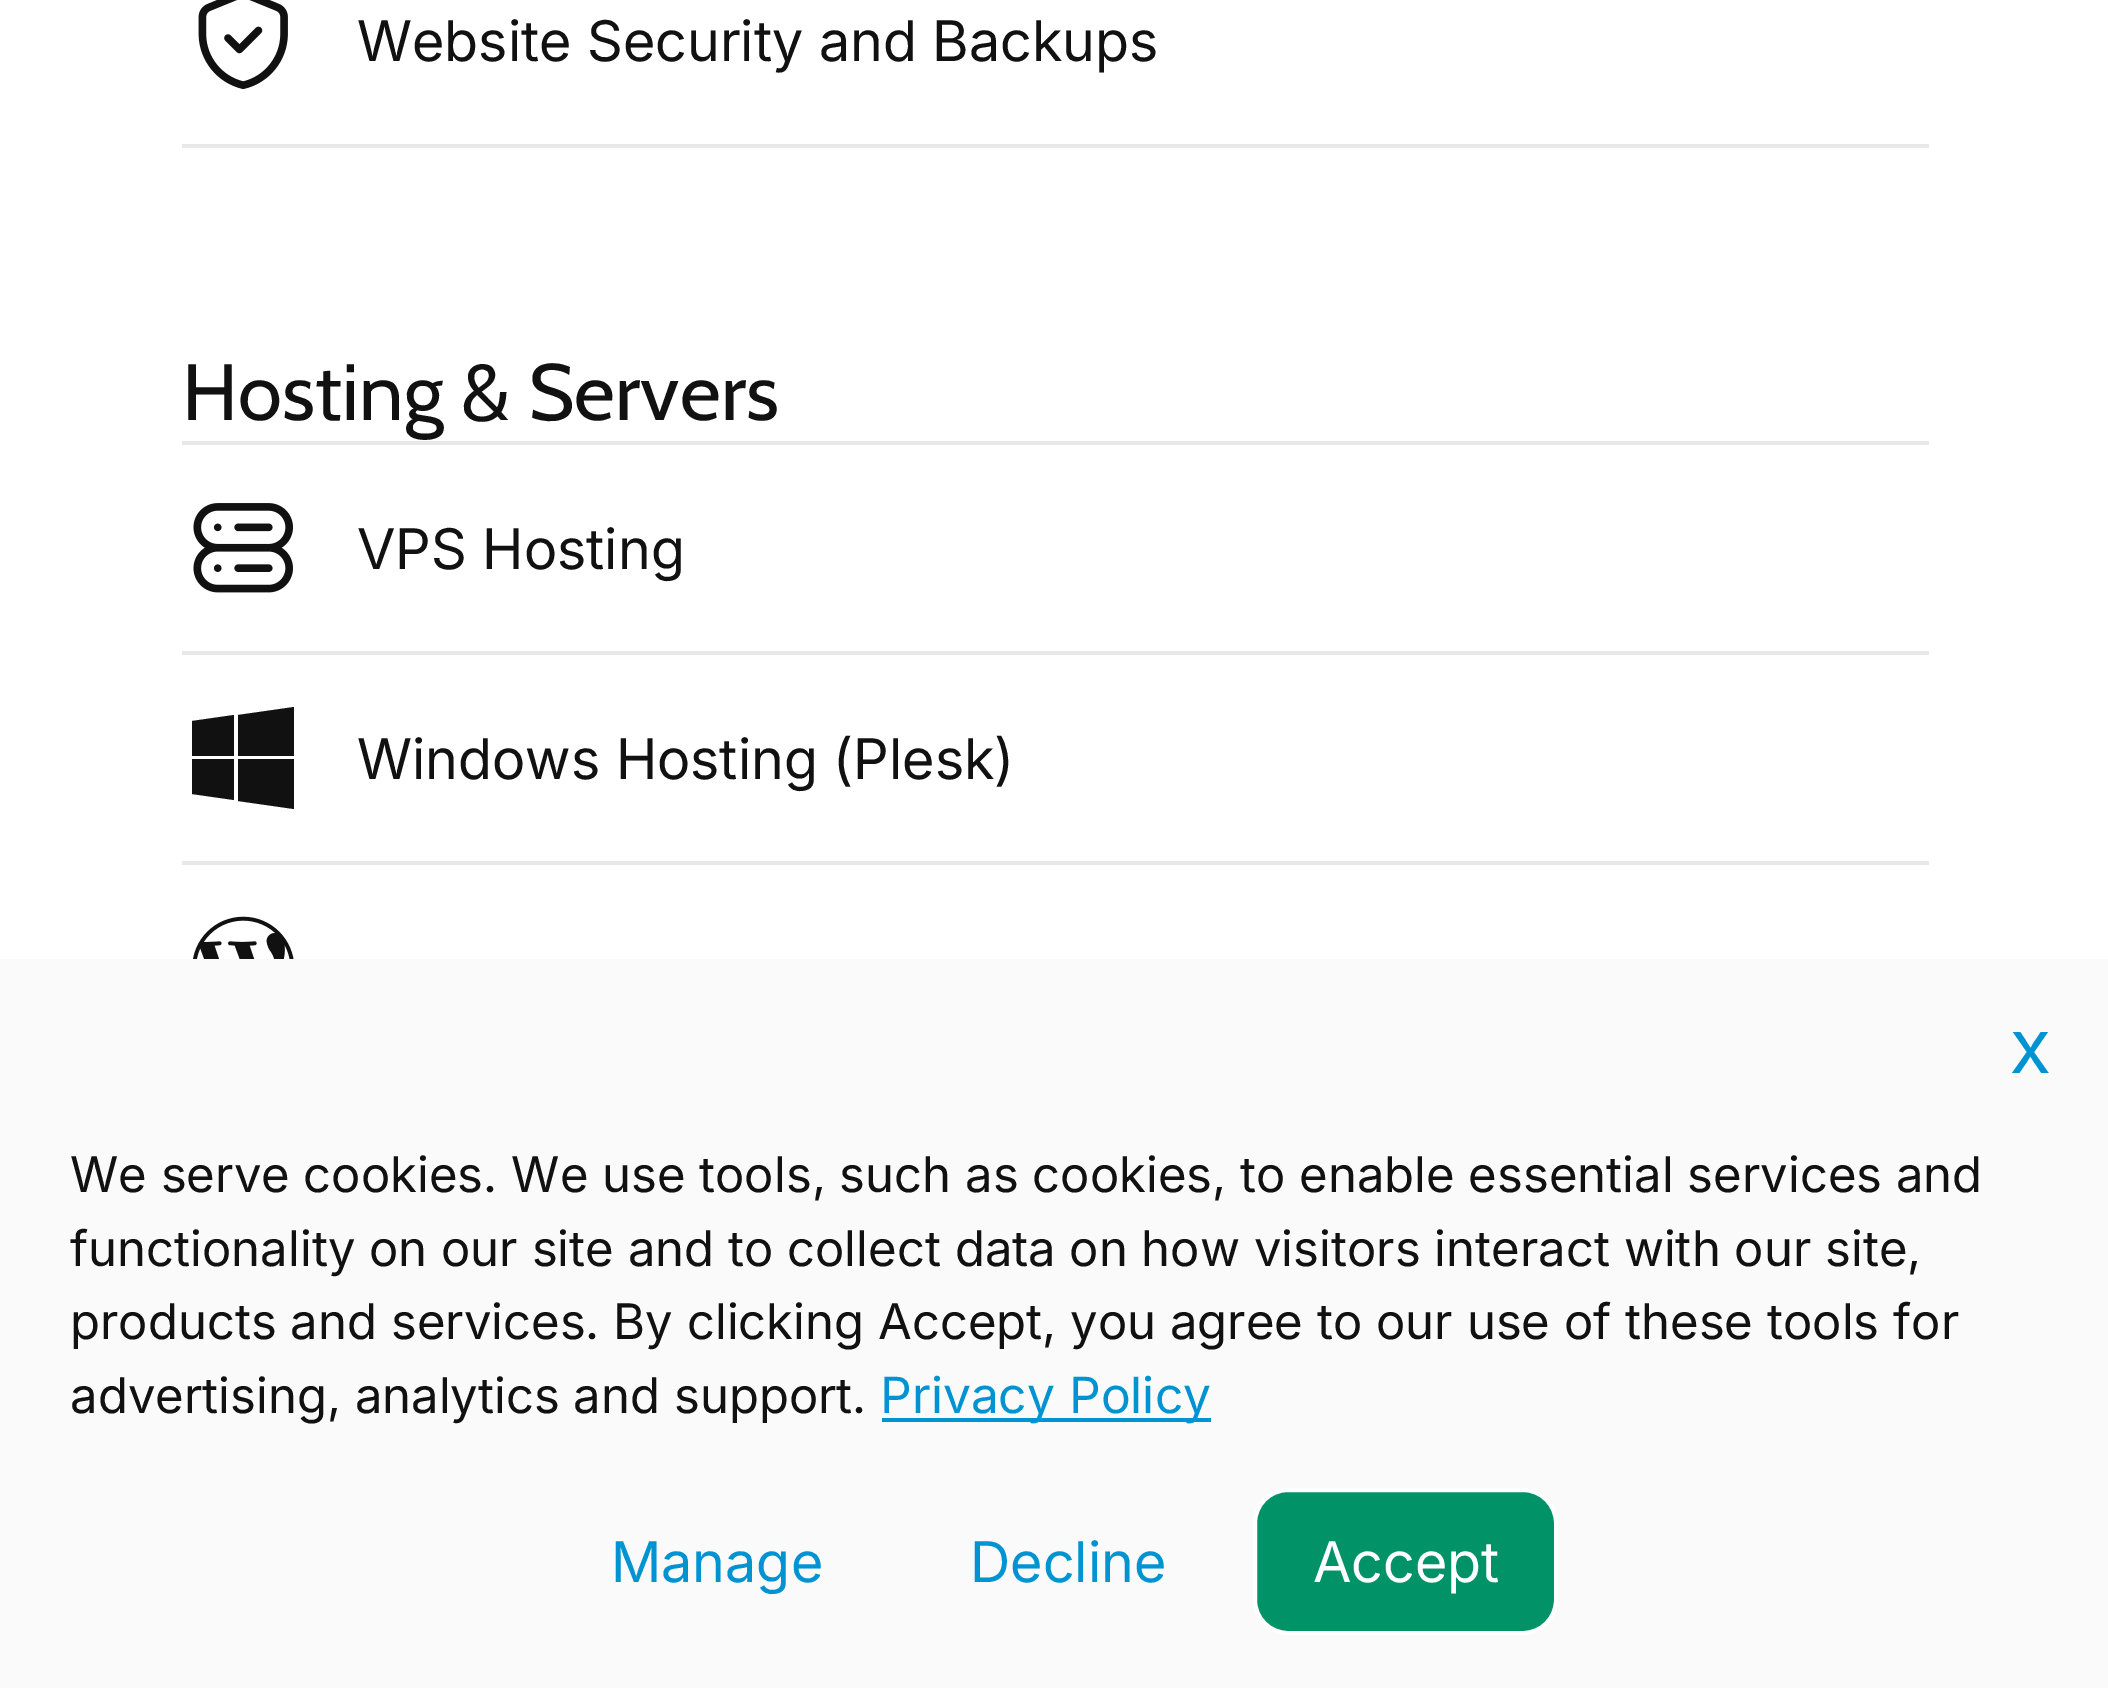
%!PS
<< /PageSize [2108 1688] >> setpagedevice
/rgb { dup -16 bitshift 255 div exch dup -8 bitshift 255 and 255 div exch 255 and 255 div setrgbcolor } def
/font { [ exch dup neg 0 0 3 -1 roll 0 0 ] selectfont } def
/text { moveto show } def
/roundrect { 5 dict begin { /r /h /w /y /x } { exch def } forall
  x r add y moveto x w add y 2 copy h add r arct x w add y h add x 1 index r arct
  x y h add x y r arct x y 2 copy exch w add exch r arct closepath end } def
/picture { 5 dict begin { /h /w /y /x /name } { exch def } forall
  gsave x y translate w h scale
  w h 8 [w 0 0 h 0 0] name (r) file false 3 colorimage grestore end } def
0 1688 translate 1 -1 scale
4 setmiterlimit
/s1 { /Inter-Regular 56 font 16#111111 rgb } def
/s2 { /Cabin-Regular 79.75 font 16#111111 rgb } def
/s3 { /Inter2-Regular 77 font 16#0093D1 rgb } def
/s4 { /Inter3-Regular 49 font 16#111111 rgb } def
/s5 { /Inter3-Regular 49.75 font 16#0093D1 rgb } def
/s6 { /Inter-Regular 56 font 16#0093D1 rgb } def
/s7 { /Inter-Regular 56 font 16#FFFFFF rgb } def
16#FFFFFF rgb
0 0 2108 1688 rectfill
16#E8E8E8 rgb
182 144 1747 4 rectfill
(pic1.raw) 198 0 90 90 picture
s1
(Website Security and Backups) 357 61 text
16#E8E8E8 rgb
182 441 1747 4 rectfill
s2
(Hosting & Servers) 182 420 text
16#E8E8E8 rgb
182 651 1747 4 rectfill
(pic2.raw) 193 503 100 90 picture
s1
(VPS Hosting) 357 569 text
16#E8E8E8 rgb
182 861 1747 4 rectfill
16#111111 rgb
294 756 moveto 238 756 lineto 238 715 lineto 294 707 lineto closepath 294 809 moveto 238 801 lineto 238 759 lineto 294 759 lineto closepath 234 756 moveto 192 756 lineto 192 721 lineto 234 715 lineto closepath 234 800 moveto 192 794 lineto 192 759 lineto 234 759 lineto closepath eofill
(Windows Hosting \(Plesk\)) 357 779 text
(pic3.raw) 193 916 101 43 picture
16#FAFAFA rgb
0 959 2108 729 rectfill
s3
(x) 2010 1073 text
s4
(We serve cookies. We use tools, such as cookies, to enable essential services and) 70 1192 text
(functionality on our site and to collect data on how visitors interact with our site,) 70 1266 text
(products and services. By clicking Accept, you agree to our use of these tools for) 70 1339 text
(advertising, analytics and support.) 70 1413 text
16#0093D1 rgb
882 1418 329 4 rectfill
s5
(Privacy Policy) 880 1413 text
s6
(Manage) 611 1582 text
(Decline) 970 1582 text
16#019267 rgb
1255 1490 301 143 33 roundrect gsave fill grestore
16#FFFFFF rgb
4 setlinewidth
stroke
(Accept) 1313 1582 text
showpage
